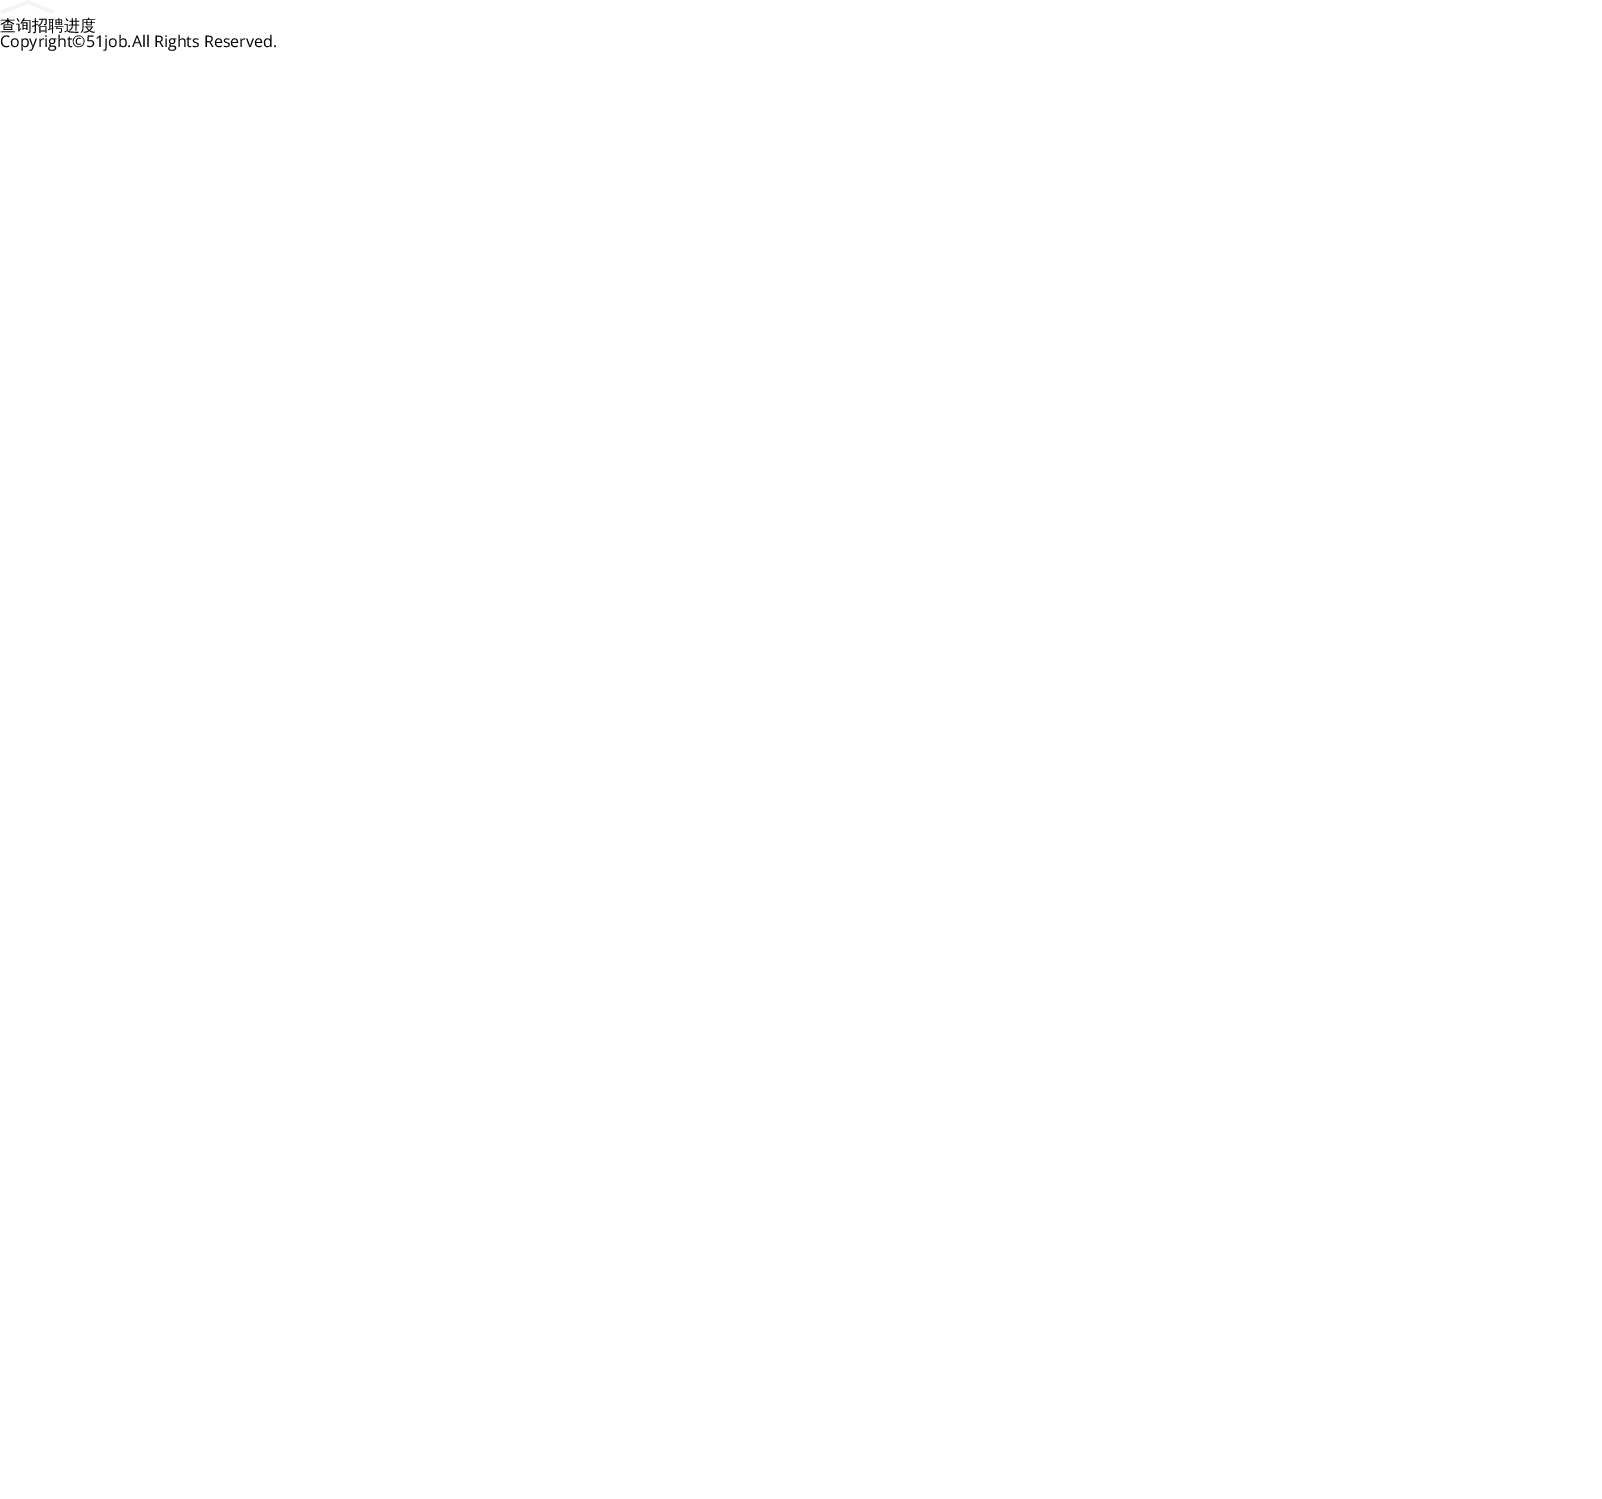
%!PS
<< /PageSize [1602 1499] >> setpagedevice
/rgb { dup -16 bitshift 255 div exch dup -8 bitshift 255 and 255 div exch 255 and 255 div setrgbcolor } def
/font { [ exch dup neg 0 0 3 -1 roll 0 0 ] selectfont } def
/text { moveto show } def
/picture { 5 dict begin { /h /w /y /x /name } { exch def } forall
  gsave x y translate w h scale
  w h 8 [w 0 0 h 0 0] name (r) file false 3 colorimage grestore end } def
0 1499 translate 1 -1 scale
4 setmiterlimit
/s1 { /WenQuanYiZenHei-Medium 16 font 16#000000 rgb } def
/s2 { /OpenSans-Regular 16 font 16#000000 rgb } def
16#FFFFFF rgb
0 0 1602 1499 rectfill
(pic1.raw) 0 0 55 14 picture
s1
(查询招聘进度) 0 31 text
s2
(Copyright©51job.All Rights Reserved.) 0 47 text
showpage
